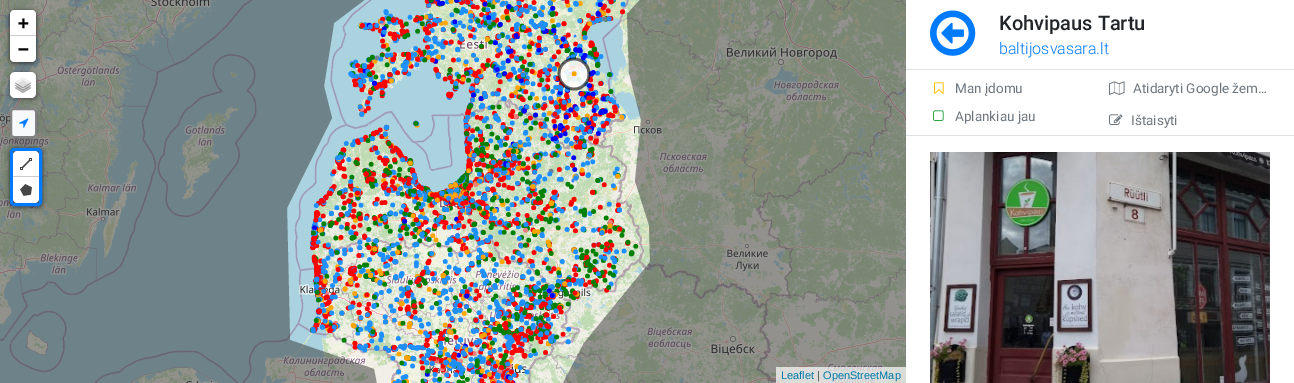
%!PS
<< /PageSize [1294 383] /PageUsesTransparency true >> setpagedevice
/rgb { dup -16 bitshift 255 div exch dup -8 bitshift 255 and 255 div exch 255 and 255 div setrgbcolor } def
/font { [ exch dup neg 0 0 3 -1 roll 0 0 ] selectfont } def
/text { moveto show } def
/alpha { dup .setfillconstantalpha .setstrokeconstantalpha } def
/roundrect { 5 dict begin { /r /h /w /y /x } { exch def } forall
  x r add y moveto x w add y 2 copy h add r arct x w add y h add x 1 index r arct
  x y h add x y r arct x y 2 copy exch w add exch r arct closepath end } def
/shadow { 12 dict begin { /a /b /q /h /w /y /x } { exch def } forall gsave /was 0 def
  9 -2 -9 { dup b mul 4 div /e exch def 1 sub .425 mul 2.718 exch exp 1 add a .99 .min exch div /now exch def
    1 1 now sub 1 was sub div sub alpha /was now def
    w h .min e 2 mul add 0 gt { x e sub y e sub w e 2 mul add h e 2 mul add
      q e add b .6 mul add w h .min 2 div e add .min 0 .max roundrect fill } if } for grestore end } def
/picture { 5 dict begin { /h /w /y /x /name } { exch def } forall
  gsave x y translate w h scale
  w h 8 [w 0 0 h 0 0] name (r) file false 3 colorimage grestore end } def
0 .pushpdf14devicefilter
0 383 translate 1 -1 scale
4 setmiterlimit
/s1 { /DejaVuSansMono-Bold 18 font 16#000000 rgb } def
/s2 { /LiberationSans-Regular 11 font 16#0078A8 rgb } def
/s3 { /LiberationSans-Regular 11 font 16#333333 rgb } def
/s4 { /Roboto-Medium 20 font 16#212529 rgb } def
/s5 { /Roboto-Light 16 font 16#007BFF rgb } def
/s6 { /Roboto-Regular 13.5 font 16#6C757D rgb } def
16#FFFFFF rgb
0 0 1294 383 rectfill
(pic1.raw) 0 0 126 36 picture
(pic2.raw) 126 0 256 36 picture
(pic3.raw) 382 0 256 36 picture
(pic4.raw) 638 0 256 36 picture
(pic5.raw) 894 0 12 36 picture
(pic6.raw) 0 36 126 256 picture
(pic7.raw) 126 36 256 256 picture
(pic8.raw) 382 36 256 256 picture
(pic9.raw) 638 36 256 256 picture
(pic10.raw) 894 36 12 256 picture
(pic11.raw) 0 292 126 91 picture
(pic12.raw) 126 292 256 91 picture
(pic13.raw) 382 292 256 91 picture
(pic14.raw) 638 292 256 91 picture
(pic15.raw) 894 292 12 91 picture
(pic16.raw) 310 0 329 383 picture
gsave
0 0 906 383 rectclip
0.5 alpha
16#333333 rgb
999 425 moveto -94 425 lineto -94 -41 lineto 999 -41 lineto closepath 438 -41 moveto 367 -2 lineto 334 23 lineto 324 86 lineto 332 118 lineto 287 208 lineto 290 340 lineto 374 369 lineto 383 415 lineto 396 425 lineto 541 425 lineto 584 343 lineto 650 262 lineto 649 225 lineto 635 181 lineto 641 120 lineto 629 73 lineto 627 14 lineto 648 -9 lineto 642 -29 lineto 617 -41 lineto closepath eofill
grestore
16#000000 rgb
10 11 26 52 4 2.5 0.65 shadow
16#FFFFFF rgb
14 10 moveto 32 10 lineto 34 10 36 12 36 14 curveto 36 36 lineto 10 36 lineto 10 14 lineto 10 12 12 10 14 10 curveto closepath fill
16#CCCCCC rgb
10 35 26 1 rectfill
s1
(+) 18 29 text
16#FFFFFF rgb
10 36 moveto 36 36 lineto 36 58 lineto 36 60 34 62 32 62 curveto 14 62 lineto 12 62 10 60 10 58 curveto closepath fill
s1
(−) 18 55 text
10 73 26 26 5 2.5 0.4 shadow
16#FFFFFF rgb
10 72 26 26 5 roundrect fill
(pic17.raw) 15 77 16 16 picture
16#000000 rgb
10 116 27 30 4 8 0.15 shadow
16#F8F9FA rgb
10 108 27 30 4 roundrect fill
0.8 alpha
16#646464 rgb
2 setlinewidth
11 109 25 28 3 roundrect stroke
1 alpha
(pic18.raw) 19 118 10 10 picture
16#000000 rgb
10 149 32 58 4 2.5 0.65 shadow
16#007BFF rgb
3 setlinewidth
11.5 149.5 29 55 2.5 roundrect stroke
16#FFFFFF rgb
17 151 moveto 35 151 lineto 37 151 39 153 39 155 curveto 39 176 lineto 13 176 lineto 13 155 lineto 13 153 15 151 17 151 curveto closepath fill
(pic19.raw) 20 158 12 12 picture
16#CCCCCC rgb
13 176 26 1 rectfill
16#FFFFFF rgb
13 177 moveto 39 177 lineto 39 199 lineto 39 201 37 203 35 203 curveto 17 203 lineto 15 203 13 201 13 199 curveto closepath fill
(pic20.raw) 20 184 12 12 picture
0.7 alpha
776 367 130 16 rectfill
1 alpha
s2
(Leaflet) 781 379 text
s3
(|) 817 379 text
s2
(OpenStreetMap) 823 379 text
16#DEE2E6 rgb
906 69 388 1 rectfill
(pic21.raw) 930 10 46 46 picture
s4
(Kohvipaus Tartu) 999 30 text
s5
(baltijosvasara.lt) 999 54 text
16#DEE2E6 rgb
906 135 388 1 rectfill
(pic22.raw) 934 82 10 12 picture
s6
(Man įdomu) 955 93 text
(pic23.raw) 933 110 11 11 picture
(Aplankiau jau) 955 121 text
(pic24.raw) 1109 81 16 14 picture
(Atidaryti Google žem…) 1133 93 text
(pic25.raw) 1109 114 14 11 picture
(Ištaisyti) 1131 125 text
(pic26.raw) 930 152 340 231 picture
(pic27.raw) 930 152 340 231 picture
.poppdf14devicefilter showpage
